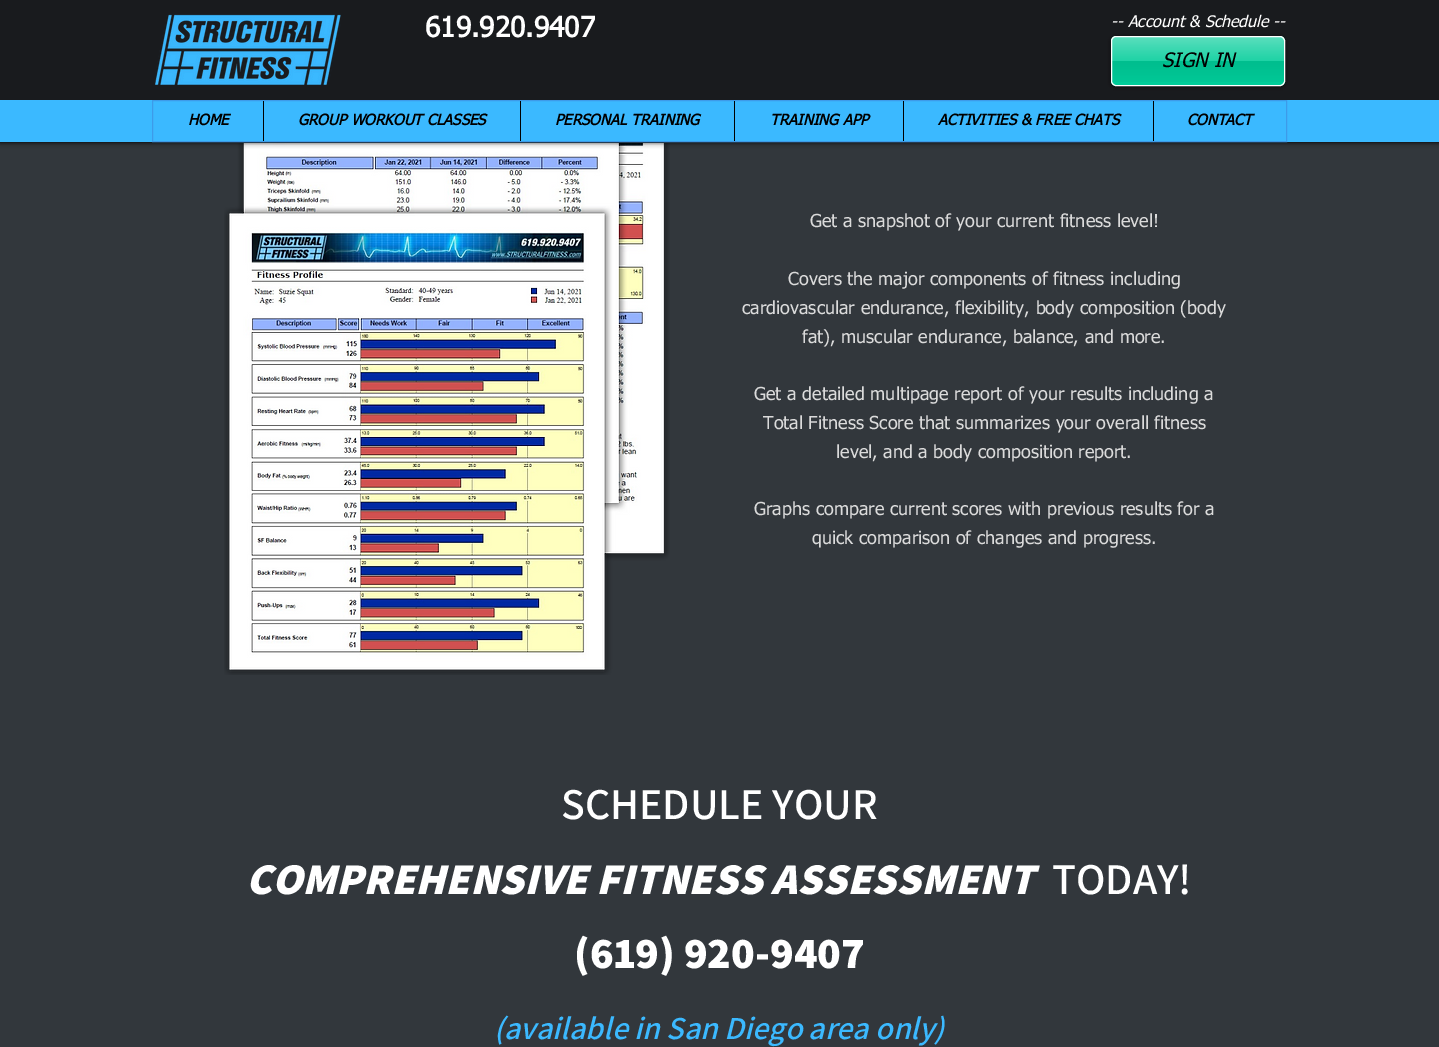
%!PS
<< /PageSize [1439 1047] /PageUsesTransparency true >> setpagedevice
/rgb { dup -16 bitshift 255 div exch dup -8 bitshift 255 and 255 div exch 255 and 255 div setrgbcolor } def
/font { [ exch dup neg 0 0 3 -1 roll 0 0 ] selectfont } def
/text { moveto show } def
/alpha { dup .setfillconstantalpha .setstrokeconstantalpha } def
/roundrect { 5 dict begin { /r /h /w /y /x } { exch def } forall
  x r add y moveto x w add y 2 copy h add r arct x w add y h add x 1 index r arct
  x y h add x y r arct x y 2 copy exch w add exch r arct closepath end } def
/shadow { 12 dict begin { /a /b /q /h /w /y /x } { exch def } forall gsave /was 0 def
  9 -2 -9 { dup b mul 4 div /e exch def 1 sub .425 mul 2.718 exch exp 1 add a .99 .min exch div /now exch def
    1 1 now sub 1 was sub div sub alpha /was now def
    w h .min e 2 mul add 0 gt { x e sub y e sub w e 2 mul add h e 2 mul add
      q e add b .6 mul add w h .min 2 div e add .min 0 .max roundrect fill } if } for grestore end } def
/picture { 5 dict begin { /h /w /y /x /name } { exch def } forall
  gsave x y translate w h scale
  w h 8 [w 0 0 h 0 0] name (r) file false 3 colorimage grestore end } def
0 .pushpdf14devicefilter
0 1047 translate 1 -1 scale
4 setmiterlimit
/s1 { /tahoma-Bold 28 font 16#FFFFFF rgb } def
/s2 { /tahoma-Italic 16 font 16#FFFFFF rgb } def
/s3 { /tahoma-Italic 20 font 16#000000 rgb } def
/s4 { /tahoma-BoldItalic 15 font 16#000000 rgb } def
/s5 { /tahoma-Regular 18 font 16#DBDBDB rgb } def
/s6 { /Assistant-SemiBold 44 font 16#FFFFFF rgb } def
/s7 { /Assistant-ExtraBoldItalic 44 font 16#FFFFFF rgb } def
/s8 { /Assistant-ExtraBold 44 font 16#FFFFFF rgb } def
/s9 { /Assistant-SemiBoldItalic 32 font 16#3BB9FF rgb } def
16#32373C rgb
0 0 1439 1047 rectfill
(pic3.raw) 224 143 446 532 picture
16#000000 rgb
0 0 1439 143 0 2.5 0.7 shadow
16#191B1E rgb
0 0 1439 143 rectfill
(pic1.raw) 155 14 186 71 picture
s1
(619.920.9407) 425 37 text
s2
(-- Account & Schedule --) 1111 27 text
16#000000 rgb
1111 37 174 50 5 2 0.6 shadow
16#00CC99 rgb
1111 36 174 50 5 roundrect fill
(pic2.raw) 1111 36 174 46 picture
16#FFFFFF rgb
1111.5 36.5 173 49 4.5 roundrect stroke
s3
(SIGN IN) 1162 67 text
16#3BB9FF rgb
0 100 1439 42 rectfill
16#3D9BE9 rgb
152.5 100.5 1134 41 rectstroke
s4
(HOME) 188 125 text
263 101 1 40 rectfill
(GROUP WORKOUT CLASSES) 298 125 text
520 101 1 40 rectfill
(PERSONAL TRAINING) 555 125 text
734 101 1 40 rectfill
(TRAINING APP) 770 125 text
903 101 1 40 rectfill
(ACTIVITIES & FREE CHATS) 938 125 text
1153 101 1 40 rectfill
(CONTACT) 1187 125 text
s5
(Get a snapshot of your current fitness level!) 810 227 text
(Covers the major components of fitness including) 788 285 text
(cardiovascular endurance, flexibility, body composition \(body) 742 314 text
(fat\), muscular endurance, balance, and more.) 802 343 text
(Get a detailed multipage report of your results including a) 754 400 text
(Total Fitness Score that summarizes your overall fitness) 763 429 text
(level, and a body composition report.) 836 458 text
(Graphs compare current scores with previous results for a) 754 515 text
(quick comparison of changes and progress.) 812 544 text
s6
(SCHEDULE YOUR) 561 819 text
s7
(COMPREHENSIVE FITNESS ASSESSMENT) 246 894 text
s6
(TODAY!) 1052 894 text
s8
(\(619\) 920-9407) 574 968 text
s9
(\(available in San Diego area only\)) 494 1039 text
.poppdf14devicefilter showpage
